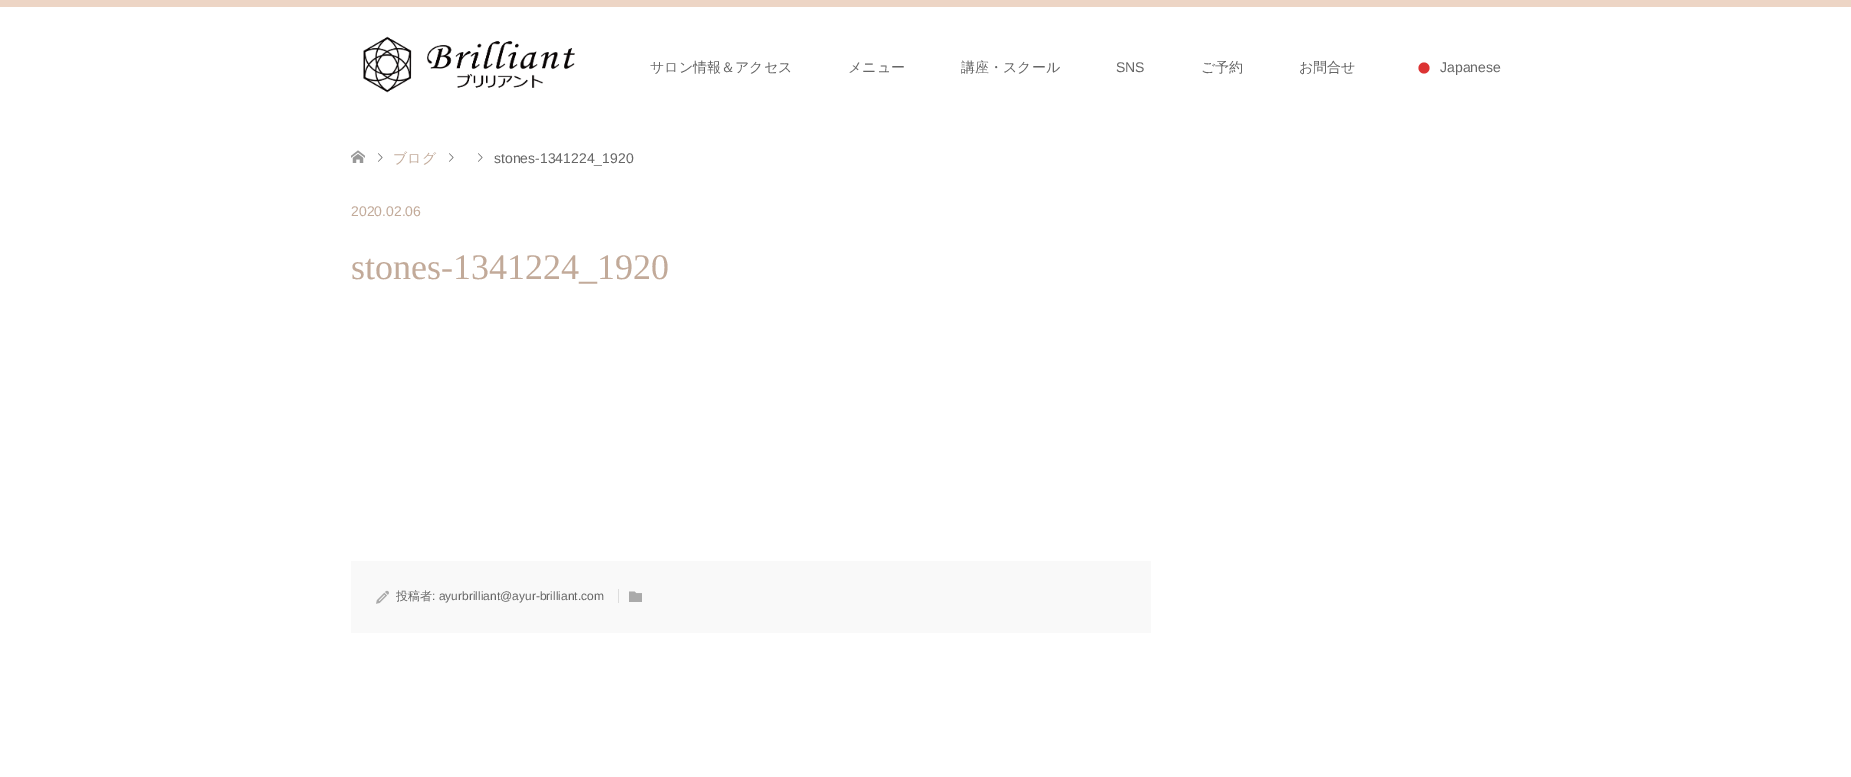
%!PS
<< /PageSize [1851 777] >> setpagedevice
/rgb { dup -16 bitshift 255 div exch dup -8 bitshift 255 and 255 div exch 255 and 255 div setrgbcolor } def
/font { [ exch dup neg 0 0 3 -1 roll 0 0 ] selectfont } def
/text { moveto show } def
/circle { newpath 0 360 arc closepath } def
/picture { 5 dict begin { /h /w /y /x /name } { exch def } forall
  gsave x y translate w h scale
  w h 8 [w 0 0 h 0 0] name (r) file false 3 colorimage grestore end } def
0 777 translate 1 -1 scale
4 setmiterlimit
/s1 { /WenQuanYiZenHei-Medium 14 font 16#666666 rgb } def
/s2 { /LiberationSans-Regular 14 font 16#666666 rgb } def
/s3 { /WenQuanYiZenHei-Medium 14 font 16#C2AA99 rgb } def
/s4 { /LiberationSans-Regular 14 font 16#C2AA99 rgb } def
/s5 { /LiberationSerif-Regular 36 font 16#C2AA99 rgb } def
/s6 { /WenQuanYiZenHei-Medium 12 font 16#666666 rgb } def
/s7 { /LiberationSans-Regular 12 font 16#666666 rgb } def
16#FFFFFF rgb
0 0 1851 777 rectfill
16#EDD5C5 rgb
0 0 1851 7 rectfill
(pic1.raw) 363 36 212 57 picture
s1
(サロン情報＆アクセス) 650 72 text
(メニュー) 848 72 text
(講座・スクール) 961 72 text
s2
(SNS) 1116 72 text
s1
(ご予約) 1201 72 text
(お問合せ) 1299 72 text
16#DC3333 rgb
1424 68 5.5 circle fill
s2
(Japanese) 1440 72 text
(pic2.raw) 351 150 14 13 picture
(pic3.raw) 378 153 5 9 picture
s3
(ブログ) 393 163 text
(pic3.raw) 449 153 5 9 picture
(pic3.raw) 478 153 5 9 picture
s2
(stones-1341224_1920) 494 163 text
s4
(2020.02.06) 351 216 text
s5
(stones-1341224_1920) 351 279 text
16#F9F9F9 rgb
351 561 800 72 rectfill
16#DDDDDD rgb
618 589 1 14 rectfill
(pic4.raw) 376 590 13 14 picture
s6
(投稿者) 396 600 text
s7
(: ayurbrilliant@ayur-brilliant.com) 432 600 text
(pic5.raw) 629 591 13 11 picture
showpage
